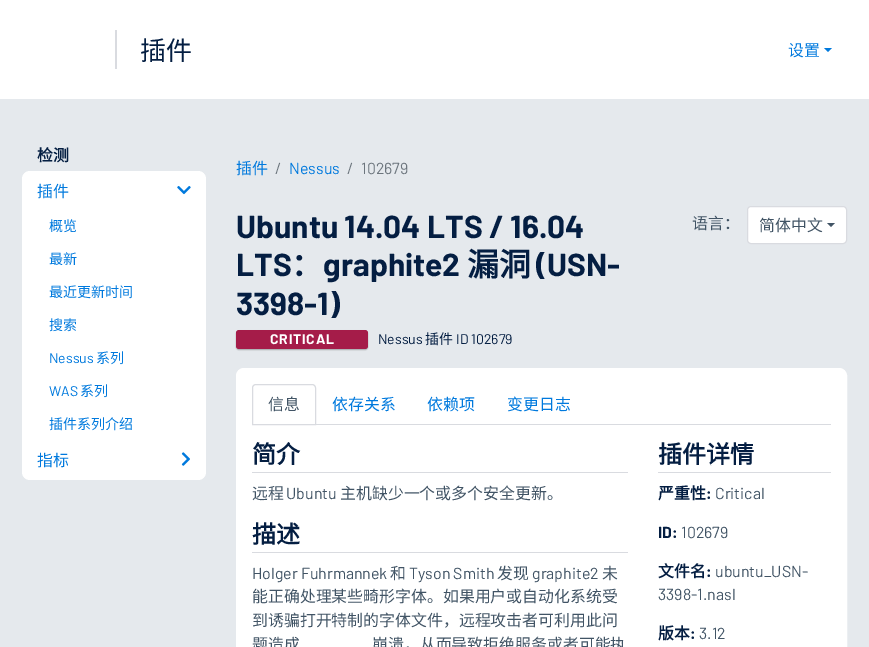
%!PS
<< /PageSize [869 647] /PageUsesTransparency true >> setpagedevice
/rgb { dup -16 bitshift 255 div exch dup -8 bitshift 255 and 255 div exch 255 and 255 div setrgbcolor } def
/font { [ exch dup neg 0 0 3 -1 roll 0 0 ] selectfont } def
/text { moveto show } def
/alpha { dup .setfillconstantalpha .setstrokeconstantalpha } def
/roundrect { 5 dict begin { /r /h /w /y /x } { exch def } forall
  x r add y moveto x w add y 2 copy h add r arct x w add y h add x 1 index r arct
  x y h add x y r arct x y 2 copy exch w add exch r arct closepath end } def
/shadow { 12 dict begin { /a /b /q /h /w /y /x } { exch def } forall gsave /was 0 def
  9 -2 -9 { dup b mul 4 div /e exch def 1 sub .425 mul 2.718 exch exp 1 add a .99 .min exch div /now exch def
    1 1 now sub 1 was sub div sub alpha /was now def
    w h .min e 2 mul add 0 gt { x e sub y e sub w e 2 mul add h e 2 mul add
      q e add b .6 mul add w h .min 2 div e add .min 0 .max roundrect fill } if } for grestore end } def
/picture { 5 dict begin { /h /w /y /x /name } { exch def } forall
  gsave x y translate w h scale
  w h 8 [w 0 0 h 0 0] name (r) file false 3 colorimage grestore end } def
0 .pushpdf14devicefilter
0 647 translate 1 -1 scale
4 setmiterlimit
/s1 { /NotoSansCJKSC-Regular 26 font 16#041E42 rgb } def
/s2 { /NotoSansCJKSC-Regular 15.9 font 16#0079DD rgb } def
/s3 { /NotoSansCJKSC-Bold 15.9 font 16#041E42 rgb } def
/s4 { /NotoSansCJKSC-Regular 14 font 16#0079DD rgb } def
/s5 { /Barlow-Regular 14 font 16#0079DD rgb } def
/s6 { /Barlow-Regular 15.9 font 16#6C757D rgb } def
/s7 { /Barlow-Regular 15.9 font 16#0079DD rgb } def
/s8 { /Barlow-Bold 31.75 font 16#041E42 rgb } def
/s9 { /NotoSansCJKSC-Bold 31.75 font 16#041E42 rgb } def
/s10 { /Barlow-Regular 14 font 16#041E42 rgb } def
/s11 { /NotoSansCJKSC-Regular 14 font 16#041E42 rgb } def
/s12 { /NotoSansCJKSC-Regular 15.9 font 16#415465 rgb } def
/s13 { /NotoSansCJKSC-Bold 24 font 16#041E42 rgb } def
/s14 { /Barlow-Regular 15.9 font 16#415465 rgb } def
/s15 { /Barlow-Bold 15.9 font 16#041E42 rgb } def
16#FFFFFF rgb
0 0 869 647 rectfill
16#D9DBE0 rgb
115 30 2 39 rectfill
s1
(插件) 140 60 text
s2
(设置) 788 56 text
824 48 moveto 832 48 lineto 828 52 lineto closepath fill
16#E5E9ED rgb
0 99 869 548 rectfill
s3
(检测) 37 161 text
16#FFFFFF rgb
22 171 184 309 8 roundrect fill
s2
(插件) 37 197 text
(pic1.raw) 177 186 14 9 picture
s4
(概览) 49 231 text
(最新) 49 264 text
(最近更新时间) 49 297 text
(搜索) 49 330 text
s5
(Nessus) 49 363 text
s4
(系列) 96 363 text
s5
(WAS) 49 396 text
s4
(系列) 80 396 text
(插件系列介绍) 49 429 text
s2
(指标) 37 466 text
(pic2.raw) 181 452 9 14 picture
(插件) 236 174 text
s6
(/) 275 174 text
s7
(Nessus) 289 174 text
s6
(/) 347 174 text
(102679) 361 174 text
s8
(Ubuntu 14.04 LTS / 16.04) 236 238 text
(LTS) 236 276 text
s9
(：) 291 276 text
s8
(graphite2) 323 276 text
s9
(漏洞) 467 276 text
s8
(\(USN-) 536 276 text
(3398-1\)) 236 315 text
16#000000 rgb
236 331 132 19 3 0.5 0.25 shadow
16#A51C49 rgb
236 330 132 19 3 roundrect fill
/Barlow-Bold 14 font
16#FFFFFF rgb
270 344 moveto 0.75 0 (CRITICAL) ashow
s10
(Nessus) 378 344 text
s11
(插件) 425 344 text
s10
(ID 102679) 456 344 text
s12
(语言：) 692 229 text
16#FFFFFF rgb
747.5 206.5 99 37 3.5 roundrect gsave fill grestore
16#D9DBE0 rgb
stroke
s12
(简体中文) 759 231 text
827 223 moveto 835 223 lineto 831 227 lineto closepath fill
16#FFFFFF rgb
236.5 368.5 610 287 7.5 roundrect gsave fill grestore
stroke
16#D9DBE0 rgb
316 424 515 1 rectfill
256 384.5 moveto 312 384.5 lineto 314 384.5 315.5 386 315.5 388 curveto 315.5 424.5 lineto 252.5 424.5 lineto 252.5 388 lineto 252.5 386 254 384.5 256 384.5 curveto closepath stroke
s12
(信息) 268 410 text
s2
(依存关系) 332 410 text
(依赖项) 427 410 text
(变更日志) 507 410 text
16#D9DBE0 rgb
252 472 376 1 rectfill
s13
(简介) 252 463 text
s12
(远程) 252 499 text
s14
(Ubuntu) 286 499 text
s12
(主机缺少一个或多个安全更新。) 340 499 text
16#D9DBE0 rgb
252 552 376 1 rectfill
s13
(描述) 252 543 text
s14
(Holger Fuhrmannek) 252 579 text
s12
(和) 390 579 text
s14
(Tyson Smith) 409 579 text
s12
(发现) 497 579 text
s14
(graphite2) 532 579 text
s12
(未) 602 579 text
(能正确处理某些畸形字体。如果用户或自动化系统受) 252 602 text
(到诱骗打开特制的字体文件，远程攻击者可利用此问) 252 626 text
(题造成) 252 650 text
(崩溃，从而导致拒绝服务或者可能执) 372 650 text
16#D9DBE0 rgb
658 472 173 1 rectfill
s13
(插件详情) 658 463 text
s3
(严重性) 658 499 text
s15
(:) 706 499 text
s14
(Critical) 715 499 text
s15
(ID:) 658 538 text
s14
(102679) 681 538 text
s3
(文件名) 658 577 text
s15
(:) 706 577 text
s14
(ubuntu_USN-) 715 577 text
(3398-1.nasl) 658 600 text
s3
(版本) 658 639 text
s15
(:) 690 639 text
s14
(3.12) 699 639 text
.poppdf14devicefilter showpage
